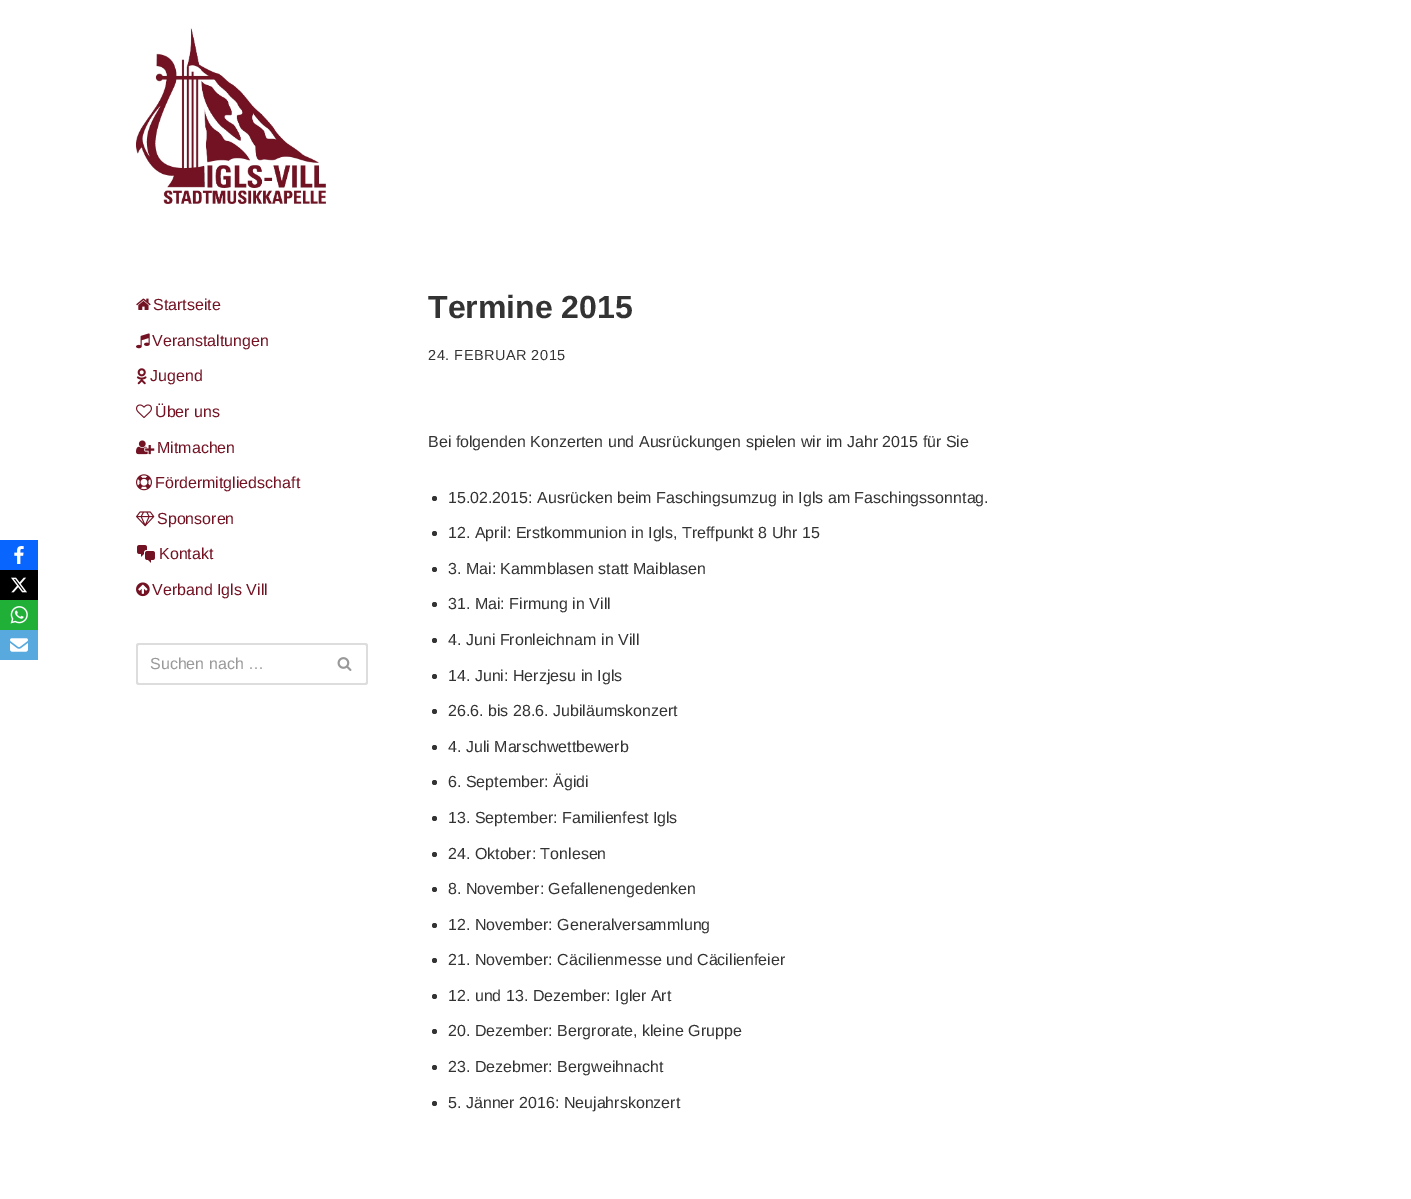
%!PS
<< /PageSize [1411 1199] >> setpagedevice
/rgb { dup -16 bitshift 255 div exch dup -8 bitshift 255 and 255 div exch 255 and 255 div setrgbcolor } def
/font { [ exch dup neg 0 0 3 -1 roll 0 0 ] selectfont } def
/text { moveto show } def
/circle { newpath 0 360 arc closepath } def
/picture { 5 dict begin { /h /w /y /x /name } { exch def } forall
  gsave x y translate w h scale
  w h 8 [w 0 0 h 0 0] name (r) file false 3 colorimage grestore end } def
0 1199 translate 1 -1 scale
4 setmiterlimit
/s1 { /LiberationSans-Regular 16 font 16#731223 rgb } def
/s2 { /LiberationSans-Regular 16 font 16#999999 rgb } def
/s3 { /LiberationSans-Bold 32 font 16#333333 rgb } def
/s4 { /LiberationSans-Regular 16 font 16#333333 rgb } def
16#FFFFFF rgb
0 0 1411 1199 rectfill
16#0866FF rgb
0 540 38 30 rectfill
(pic1.raw) 14 546 10 18 picture
16#000000 rgb
0 570 38 30 rectfill
(pic2.raw) 11 577 16 16 picture
16#20B038 rgb
0 600 38 30 rectfill
(pic3.raw) 10 606 18 18 picture
16#58A9DE rgb
0 630 38 30 rectfill
(pic4.raw) 10 638 18 14 picture
(pic5.raw) 136 28 190 176 picture
(pic6.raw) 136 298 15 12 picture
s1
(Startseite) 153 310 text
(pic7.raw) 136 333 14 16 picture
(Veranstaltungen) 152 346 text
(pic8.raw) 136 368 11 17 picture
(Jugend) 150 381 text
(pic9.raw) 136 404 16 15 picture
(Über uns) 155 417 text
(pic10.raw) 136 440 19 15 picture
(Mitmachen) 157 453 text
(pic11.raw) 136 474 16 17 picture
(Fördermitgliedschaft) 155 488 text
(pic12.raw) 136 511 19 16 picture
(Sponsoren) 157 524 text
(pic13.raw) 137 545 18 18 picture
(Kontakt) 159 559 text
(pic14.raw) 136 582 14 15 picture
(Verband Igls Vill) 152 595 text
16#DDDDDD rgb
139 643 moveto 323 643 lineto 323 685 lineto 139 685 lineto 137 685 136 684 136 682 curveto 136 646 lineto 136 644 137 643 139 643 curveto closepath 139 645 moveto 323 645 lineto 323 683 lineto 139 683 lineto 138 683 138 683 138 682 curveto 138 646 lineto 138 645 138 645 139 645 curveto closepath eofill
s2
(Suchen nach …) 150 669 text
16#DDDDDD rgb
323 643 moveto 365 643 lineto 367 643 368 644 368 646 curveto 368 682 lineto 368 684 367 685 365 685 curveto 323 685 lineto closepath 323 645 moveto 365 645 lineto 366 645 366 645 366 646 curveto 366 682 lineto 366 683 366 683 365 683 curveto 323 683 lineto closepath eofill
(pic15.raw) 337 657 15 14 picture
s3
(Termine 2015) 428 318 text
/LiberationSans-Regular 14.5 font
428 360 moveto 0.5 0 (24. FEBRUAR 2015) ashow
s4
(Bei folgenden Konzerten und Ausrückungen spielen wir im Jahr 2015 für Sie) 428 447 text
434.5 498.5 2.5 circle fill
(15.02.2015: Ausrücken beim Faschingsumzug in Igls am Faschingssonntag.) 448 503 text
434.5 533.5 2.5 circle fill
(12. April: Erstkommunion in Igls, Treffpunkt 8 Uhr 15) 448 538 text
434.5 569.5 2.5 circle fill
(3. Mai: Kammblasen statt Maiblasen) 448 574 text
434.5 604.5 2.5 circle fill
(31. Mai: Firmung in Vill) 448 609 text
434.5 640.5 2.5 circle fill
(4. Juni Fronleichnam in Vill) 448 645 text
434.5 676.5 2.5 circle fill
(14. Juni: Herzjesu in Igls) 448 681 text
434.5 711.5 2.5 circle fill
(26.6. bis 28.6. Jubiläumskonzert) 448 716 text
434.5 747.5 2.5 circle fill
(4. Juli Marschwettbewerb) 448 752 text
434.5 782.5 2.5 circle fill
(6. September: Ägidi) 448 787 text
434.5 818.5 2.5 circle fill
(13. September: Familienfest Igls) 448 823 text
434.5 854.5 2.5 circle fill
(24. Oktober: Tonlesen) 448 859 text
434.5 889.5 2.5 circle fill
(8. November: Gefallenengedenken) 448 894 text
434.5 925.5 2.5 circle fill
(12. November: Generalversammlung) 448 930 text
434.5 960.5 2.5 circle fill
(21. November: Cäcilienmesse und Cäcilienfeier) 448 965 text
434.5 996.5 2.5 circle fill
(12. und 13. Dezember: Igler Art) 448 1001 text
434.5 1031.5 2.5 circle fill
(20. Dezember: Bergrorate, kleine Gruppe) 448 1036 text
434.5 1067.5 2.5 circle fill
(23. Dezebmer: Bergweihnacht) 448 1072 text
434.5 1103.5 2.5 circle fill
(5. Jänner 2016: Neujahrskonzert) 448 1108 text
showpage
